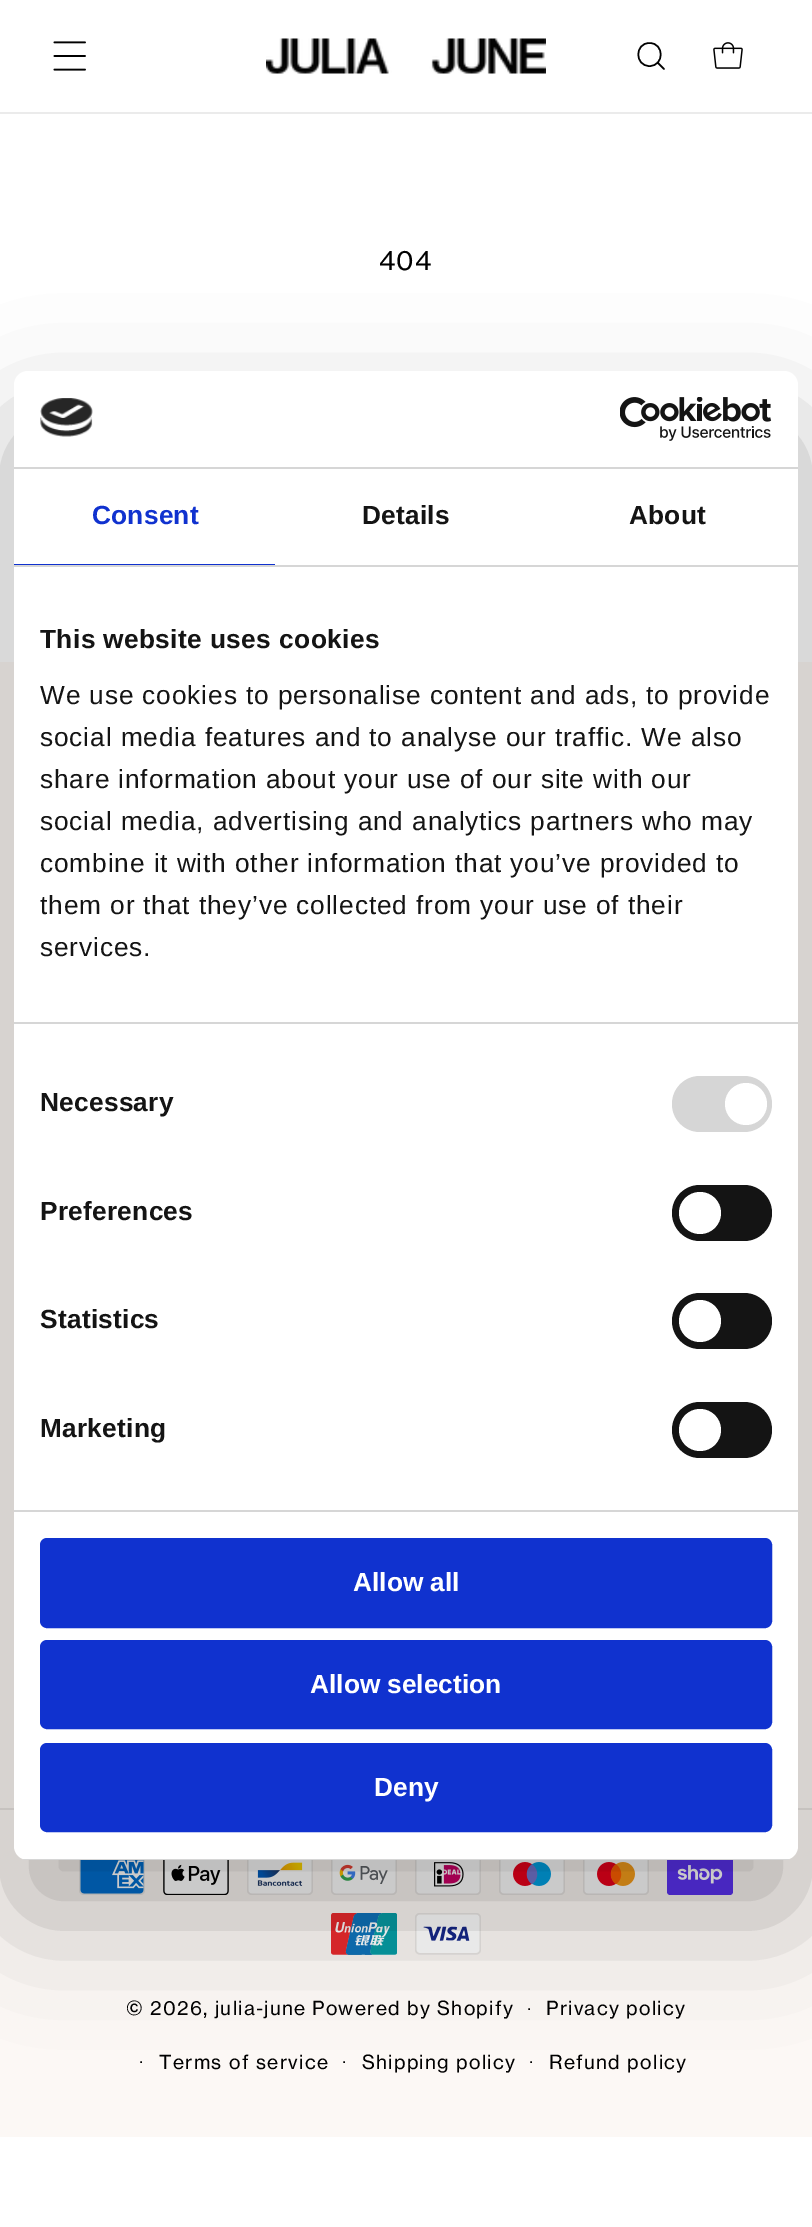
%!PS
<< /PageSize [812 2227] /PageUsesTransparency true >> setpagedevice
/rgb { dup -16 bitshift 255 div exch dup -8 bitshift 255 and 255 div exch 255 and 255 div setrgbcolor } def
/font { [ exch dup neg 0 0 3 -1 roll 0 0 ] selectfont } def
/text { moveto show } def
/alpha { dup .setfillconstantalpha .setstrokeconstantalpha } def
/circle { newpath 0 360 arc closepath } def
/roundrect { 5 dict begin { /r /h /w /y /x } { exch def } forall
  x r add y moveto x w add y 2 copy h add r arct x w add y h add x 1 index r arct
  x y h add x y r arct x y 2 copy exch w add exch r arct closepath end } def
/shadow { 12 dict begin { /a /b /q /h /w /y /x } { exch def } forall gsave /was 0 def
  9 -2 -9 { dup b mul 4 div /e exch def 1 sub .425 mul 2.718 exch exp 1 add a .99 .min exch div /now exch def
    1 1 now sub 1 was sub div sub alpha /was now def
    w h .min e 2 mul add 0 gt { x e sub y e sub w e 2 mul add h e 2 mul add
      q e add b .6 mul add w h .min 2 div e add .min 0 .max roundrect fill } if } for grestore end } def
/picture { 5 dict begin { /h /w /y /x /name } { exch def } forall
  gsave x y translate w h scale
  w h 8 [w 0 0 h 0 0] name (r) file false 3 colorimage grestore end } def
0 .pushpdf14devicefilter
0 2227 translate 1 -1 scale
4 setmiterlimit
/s1 { /LiberationSans-Bold 26.25 font 16#FFFFFF rgb } def
16#FFFFFF rgb
0 0 812 2227 rectfill
16#EBEBEB rgb
0 112 812 2 rectfill
(pic1.raw) 53 41 33 30 picture
(pic2.raw) 266 38 280 36 picture
16#000000 rgb
1.5 setlinewidth
1 setlinecap
1 setlinejoin
657.5 62.5 moveto 664 69 lineto 649.5 66 moveto 664.5 66 664.5 43 649.5 43 curveto 634.5 43 634.5 66 649.5 66 curveto closepath stroke
(pic3.raw) 713 42 30 27 picture
/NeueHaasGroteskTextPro-Regular 26.25 font
379 270 moveto 1 0 (404) ashow
16#FCF8F5 rgb
0 662 812 1475 rectfill
16#E8E4E1 rgb
0 1808 812 2 rectfill
(pic6.raw) 79 1860 66 35 picture
(pic7.raw) 163 1860 66 35 picture
(pic8.raw) 247 1860 66 35 picture
(pic9.raw) 331 1860 66 35 picture
(pic10.raw) 415 1860 66 35 picture
(pic11.raw) 499 1860 66 35 picture
(pic12.raw) 583 1860 66 35 picture
(pic13.raw) 667 1860 66 35 picture
(pic14.raw) 331 1913 66 42 picture
(pic15.raw) 415 1913 66 42 picture
16#000000 rgb
14 427 784 1489 14 59.5 0.3 shadow
16#FFFFFF rgb
14 371 784 1489 14 roundrect fill
16#D6D6D6 rgb
14 467 784 2 rectfill
(pic4.raw) 40 398 53 39 picture
(pic5.raw) 620 397 152 44 picture
14 565 784 2 rectfill
16#1032CF rgb
14 564 261 1 rectfill
/LiberationSans-Bold 26.25 font
92 524 moveto 0.25 0 (Consent) ashow
16#141414 rgb
362 524 moveto 0.25 0 (Details) ashow
629 524 moveto 0.25 0 (About) ashow
16#D6D6D6 rgb
14 1022 784 2 rectfill
16#141414 rgb
40 648 moveto 0.4 0 (This website uses cookies) ashow
/LiberationSans-Regular 26.25 font
40 704 moveto 0.88 0 (We use cookies to personalise content and ads, to provide) ashow
40 746 moveto 0.88 0 (social media features and to analyse our traffic. We also) ashow
40 788 moveto 0.88 0 (share information about your use of our site with our) ashow
40 830 moveto 0.88 0 (social media, advertising and analytics partners who may) ashow
40 872 moveto 0.88 0 (combine it with other information that you’ve provided to) ashow
40 914 moveto 0.88 0 (them or that they’ve collected from your use of their) ashow
40 956 moveto 0.88 0 (services.) ashow
16#D6D6D6 rgb
14 1510 784 2 rectfill
/LiberationSans-Bold 26.25 font
16#141414 rgb
40 1111 moveto 0.25 0 (Necessary) ashow
16#D6D6D6 rgb
672 1076 100 56 28 roundrect fill
16#FFFFFF rgb
746 1104 21 circle fill
16#141414 rgb
40 1220 moveto 0.25 0 (Preferences) ashow
672 1185 100 56 28 roundrect fill
16#FFFFFF rgb
700 1213 21 circle fill
16#141414 rgb
40 1328 moveto 0.25 0 (Statistics) ashow
672 1293 100 56 28 roundrect fill
16#FFFFFF rgb
700 1321 21 circle fill
16#141414 rgb
40 1437 moveto 0.25 0 (Marketing) ashow
672 1402 100 56 28 roundrect fill
16#FFFFFF rgb
700 1430 21 circle fill
gsave
14 371 784 1489 14 roundrect clip newpath
16#D6D6D6 rgb
23 1859 766 1 rectfill
grestore
16#1032CF rgb
42 1540 728 86 5 roundrect gsave fill grestore
4 setlinewidth
0 setlinecap
0 setlinejoin
stroke
s1
(Allow all) 353 1591 text
16#1032CF rgb
42 1642 728 85 5 roundrect gsave fill grestore
stroke
s1
(Allow selection) 310 1693 text
16#1032CF rgb
42 1745 728 85 5 roundrect gsave fill grestore
stroke
s1
(Deny) 374 1796 text
/NeueHaasGroteskTextPro-Regular 19.25 font
16#000000 rgb
126 2015 moveto 1.25 0 (© 2026, julia-june) ashow
/NeueHaasGroteskTextPro-Regular 18 font
527 2015 moveto 1.25 0 (·) ashow
/NeueHaasGroteskTextPro-Regular 19.25 font
546 2015 moveto 1.25 0 (Privacy policy) ashow
/NeueHaasGroteskTextPro-Regular 18 font
139 2068 moveto 1.25 0 (·) ashow
/NeueHaasGroteskTextPro-Regular 19.25 font
159 2069 moveto 1.25 0 (Terms of service) ashow
/NeueHaasGroteskTextPro-Regular 18 font
342 2068 moveto 1.25 0 (·) ashow
/NeueHaasGroteskTextPro-Regular 19.25 font
362 2069 moveto 1.25 0 (Shipping policy) ashow
/NeueHaasGroteskTextPro-Regular 18 font
529 2068 moveto 1.25 0 (·) ashow
/NeueHaasGroteskTextPro-Regular 19.25 font
549 2069 moveto 1.25 0 (Refund policy) ashow
312 2015 moveto 1.25 0 (Powered by Shopify) ashow
.poppdf14devicefilter showpage
